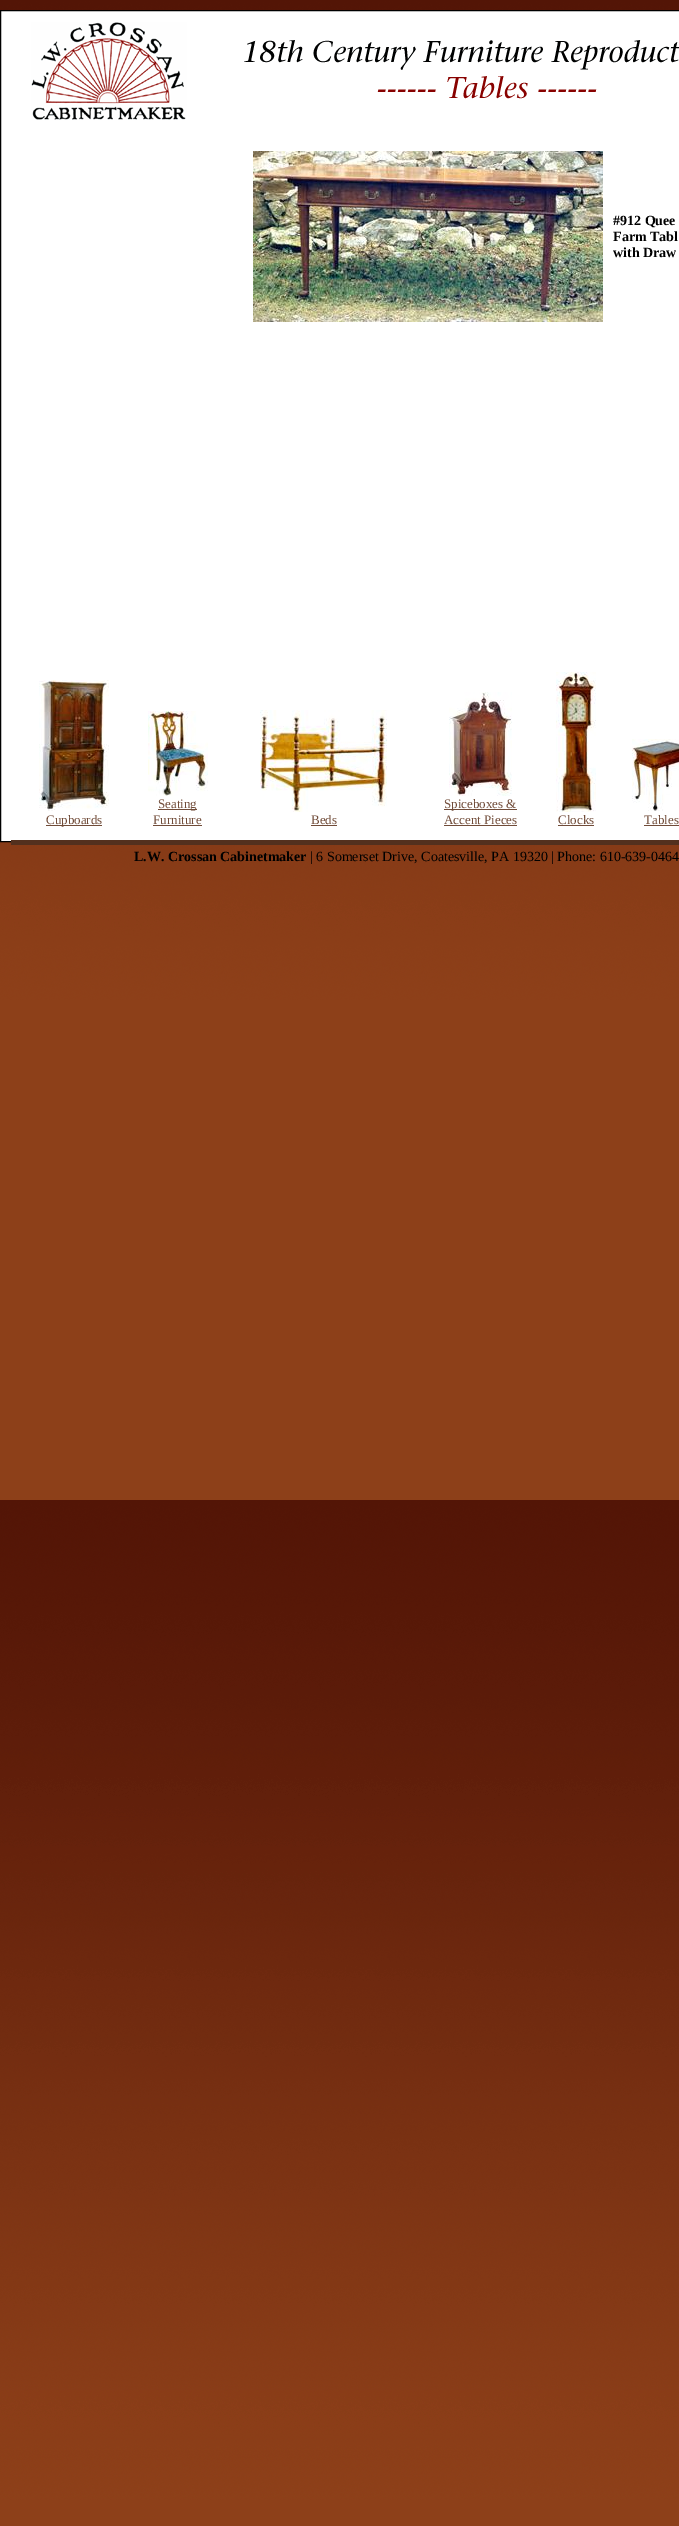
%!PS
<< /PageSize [679 2526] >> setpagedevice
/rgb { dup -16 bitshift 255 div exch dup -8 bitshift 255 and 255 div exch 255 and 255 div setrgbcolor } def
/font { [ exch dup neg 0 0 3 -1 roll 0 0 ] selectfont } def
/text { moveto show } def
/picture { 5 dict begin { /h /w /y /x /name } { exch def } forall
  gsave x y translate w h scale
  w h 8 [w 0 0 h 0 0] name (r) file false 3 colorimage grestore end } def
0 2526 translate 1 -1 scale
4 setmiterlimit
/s1 { /LiberationSerif-Bold 14 font 16#000000 rgb } def
/s2 { /LiberationSerif-Regular 13 font 16#714C39 rgb } def
/s3 { /LiberationSerif-Regular 14 font 16#000000 rgb } def
16#FFFFFF rgb
0 0 679 2526 rectfill
(pic1.raw) 0 0 679 2526 picture
0.5 10.5 moveto 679.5 10.5 lineto 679.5 841.5 lineto 0.5 841.5 lineto closepath gsave fill grestore
16#000000 rgb
stroke
(pic2.raw) 31 22 648 98 picture
(pic3.raw) 253 151 350 171 picture
s1
(#912 Quee) 613 225 text
(Farm Tabl) 613 241 text
(with Draw) 613 257 text
(pic4.raw) 39 680 70 131 picture
16#714C39 rgb
46 825 56 1 rectfill
s2
(Cupboards) 46 824 text
(pic5.raw) 148 711 60 85 picture
158 809 39 1 rectfill
(Seating) 158 808 text
(Furniture) 153 824 text
153 825 49 1 rectfill
(pic6.raw) 260 710 127 102 picture
(Beds) 311 824 text
311 825 26 1 rectfill
(pic7.raw) 449 692 63 104 picture
444 809 73 1 rectfill
(Spiceboxes &) 444 808 text
(Accent Pieces) 444 824 text
444 825 73 1 rectfill
(pic8.raw) 556 672 40 140 picture
(Clocks) 558 824 text
558 825 36 1 rectfill
(pic9.raw) 632 739 47 72 picture
(Tables) 644 824 text
644 825 35 1 rectfill
16#53301E rgb
11 840 668 5 rectfill
s1
(L.W. Crossan Cabinetmaker) 134 861 text
s3
(| 6 Somerset Drive, Coatesville, PA 19320 | Phone: 610-639-0464) 310 861 text
showpage
